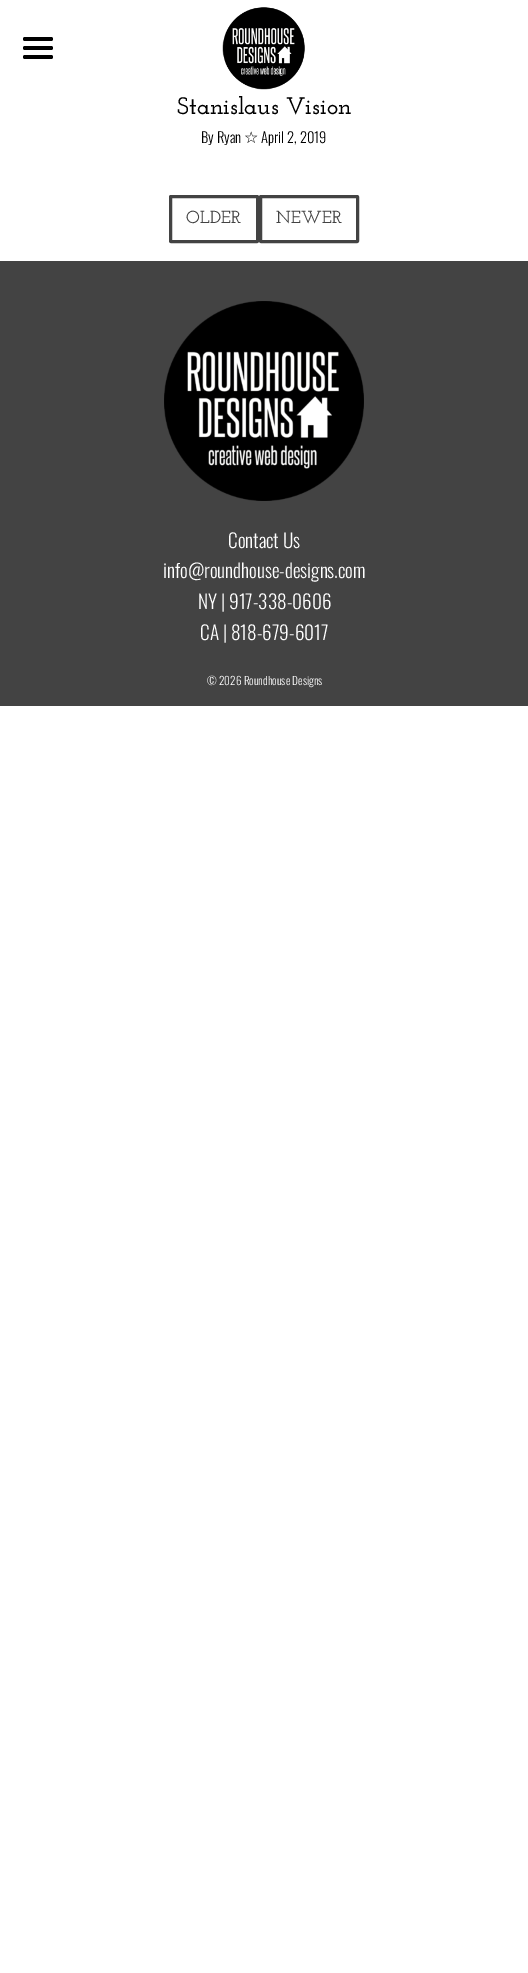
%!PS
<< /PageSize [528 1973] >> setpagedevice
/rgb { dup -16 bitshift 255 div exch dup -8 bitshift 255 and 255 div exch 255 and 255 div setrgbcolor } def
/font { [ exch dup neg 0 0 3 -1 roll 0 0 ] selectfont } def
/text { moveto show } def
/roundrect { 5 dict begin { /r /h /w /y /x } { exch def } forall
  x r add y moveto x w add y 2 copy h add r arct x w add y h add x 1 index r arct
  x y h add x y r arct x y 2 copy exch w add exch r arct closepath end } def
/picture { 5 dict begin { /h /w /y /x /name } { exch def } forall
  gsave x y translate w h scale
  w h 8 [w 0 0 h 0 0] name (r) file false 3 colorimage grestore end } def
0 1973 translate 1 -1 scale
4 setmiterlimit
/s1 { /JosefinSlab-Thin 24 font 16#000000 rgb } def
/s2 { /Oswald-Light 14.5 font 16#000000 rgb } def
/s3 { /DejaVuSans-Regular 16 font 16#000000 rgb } def
/s4 { /JosefinSlab-Thin 17.5 font 16#434343 rgb } def
/s5 { /Oswald-Light 19.25 font 16#FFFFFF rgb } def
/s6 { /Oswald-Light 11.25 font 16#FFFFFF rgb } def
16#FFFFFF rgb
0 0 528 1973 rectfill
16#000000 rgb
23 46 30 4 2 roundrect fill
23 37 30 4 2 roundrect fill
23 55 30 4 2 roundrect fill
(pic1.raw) 222 7 83 83 picture
s1
(Stanislaus Vision) 177 114 text
s2
(By Ryan) 201 143 text
s3
(☆) 244 143 text
s2
(April 2, 2019) 261 143 text
16#434343 rgb
3 setlinewidth
170.5 196.5 87 45 0.5 roundrect stroke
s4
(OLDER) 186 223 text
260.5 196.5 97 45 0.5 roundrect stroke
(NEWER) 276 223 text
0 261 528 445 rectfill
(pic2.raw) 164 301 200 200 picture
s5
(Contact Us) 228 548 text
(info@roundhouse-designs.com) 163 578 text
(NY | 917-338-0606) 198 609 text
(CA | 818-679-6017) 200 640 text
s6
(© 2026 Roundhouse Designs) 207 685 text
showpage
